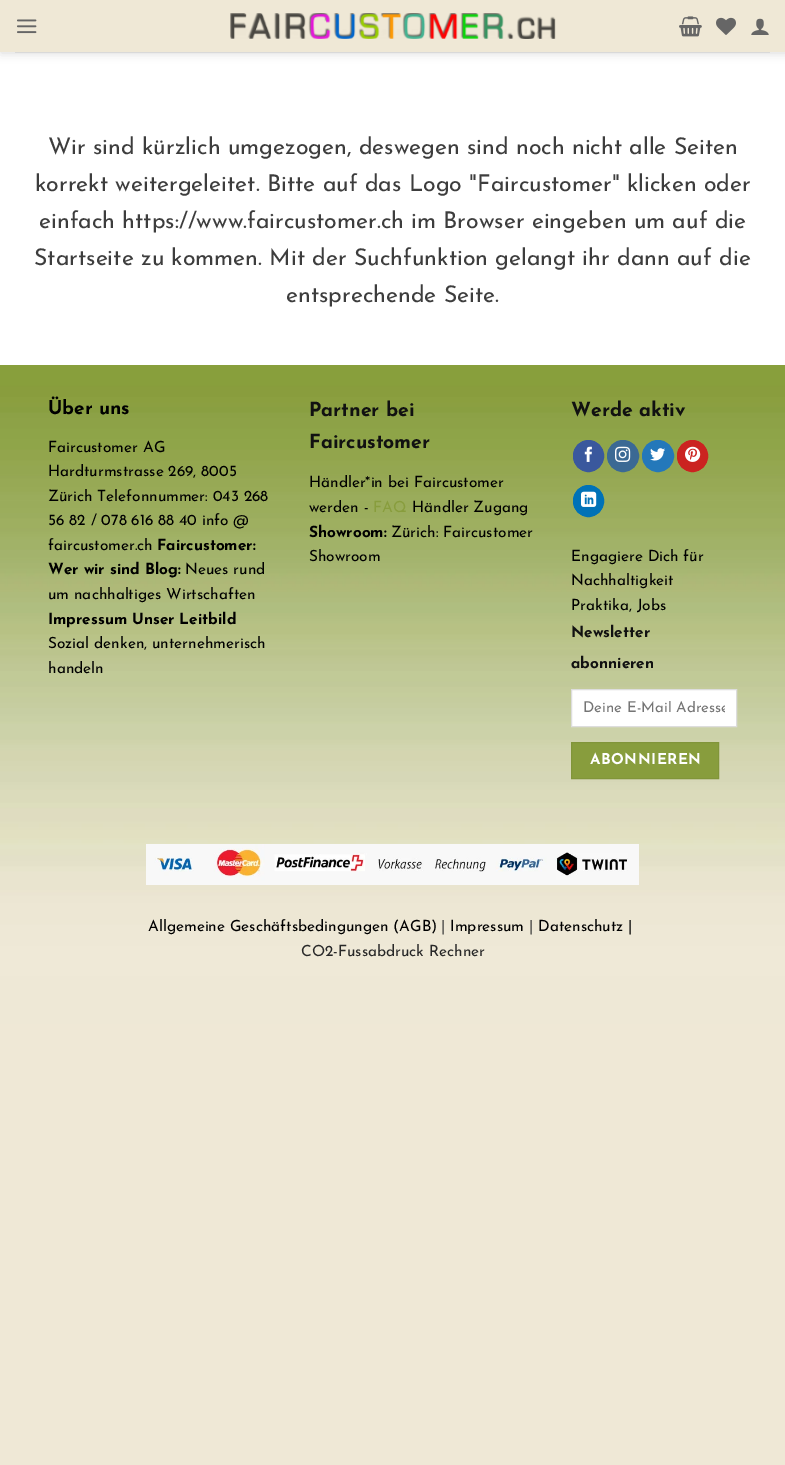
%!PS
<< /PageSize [785 1465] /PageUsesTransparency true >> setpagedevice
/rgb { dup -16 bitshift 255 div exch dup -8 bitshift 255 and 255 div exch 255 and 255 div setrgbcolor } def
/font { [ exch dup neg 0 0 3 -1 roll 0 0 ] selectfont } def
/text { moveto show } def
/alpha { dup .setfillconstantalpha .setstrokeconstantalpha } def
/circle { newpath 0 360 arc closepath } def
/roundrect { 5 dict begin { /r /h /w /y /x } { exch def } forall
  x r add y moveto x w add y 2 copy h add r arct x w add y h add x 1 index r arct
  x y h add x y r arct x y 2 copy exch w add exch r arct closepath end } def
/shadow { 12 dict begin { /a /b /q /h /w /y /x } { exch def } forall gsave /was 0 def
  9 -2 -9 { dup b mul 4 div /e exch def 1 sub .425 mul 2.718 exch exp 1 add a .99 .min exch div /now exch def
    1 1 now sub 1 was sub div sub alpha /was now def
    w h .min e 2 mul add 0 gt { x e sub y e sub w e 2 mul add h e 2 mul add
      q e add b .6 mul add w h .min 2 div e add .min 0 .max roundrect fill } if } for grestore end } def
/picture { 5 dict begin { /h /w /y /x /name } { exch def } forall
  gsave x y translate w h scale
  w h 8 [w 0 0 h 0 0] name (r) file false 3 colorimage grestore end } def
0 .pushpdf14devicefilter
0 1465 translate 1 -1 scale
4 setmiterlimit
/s1 { /JosefinSans-Regular 23.05 font 16#3D3D3D rgb } def
/s2 { /JosefinSans-Bold 19 font 16#000000 rgb } def
/s3 { /JosefinSans-Regular 15.4 font 16#000000 rgb } def
/s4 { /JosefinSans-Bold 15.4 font 16#000000 rgb } def
/s5 { /JosefinSans-Bold 19.5 font 16#111111 rgb } def
/s6 { /JosefinSans-Regular 15.4 font 16#889D3D rgb } def
/s7 { /JosefinSans-Bold 15.4 font 16#111111 rgb } def
/s8 { /JosefinSans-Regular 15 font 16#757575 rgb } def
/s9 { /JosefinSans-Regular 15.4 font 16#3D3D3D rgb } def
/s10 { /JosefinSans-Regular 15.4 font 16#282828 rgb } def
16#EFE8D6 rgb
0 0 785 1465 rectfill
16#FFFFFF rgb
0 52 785 313 rectfill
16#000000 rgb
1 1 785 52 0 5 0.15 shadow
16#EFE8D6 rgb
0 0 785 52 rectfill
(pic1.raw) 17 19 20 15 picture
(pic2.raw) 230 13 326 26 picture
(pic3.raw) 679 16 23 21 picture
(pic4.raw) 716 17 20 18 picture
(pic5.raw) 751 18 18 17 picture
16#D9D9D9 rgb
15 52 755 1 rectfill
s1
(Wir sind kürzlich umgezogen, deswegen sind noch nicht alle Seiten) 48 154 text
(korrekt weitergeleitet. Bitte auf das Logo "Faircustomer" klicken oder) 35 191 text
(einfach https://www.faircustomer.ch im Browser eingeben um auf die) 39 228 text
(Startseite zu kommen. Mit der Suchfunktion gelangt ihr dann auf die) 34 265 text
(entsprechende Seite.) 286 302 text
(pic6.raw) 0 365 785 659 picture
s2
(Über uns) 48 414 text
s3
(Faircustomer AG) 48 452 text
(Hardturmstrasse 269, 8005) 48 476 text
(Zürich Telefonnummer: 043 268) 48 501 text
(56 82 / 078 616 88 40 info @) 48 525 text
(faircustomer.ch) 48 550 text
s4
(Faircustomer:) 157 550 text
(Wer wir sind Blog:) 48 574 text
s3
(Neues rund) 185 574 text
(um nachhaltiges Wirtschaften) 48 599 text
s4
(Impressum Unser Leitbild) 48 624 text
s3
(Sozial denken, unternehmerisch) 48 648 text
(handeln) 48 673 text
s5
(Partner bei) 309 416 text
(Faircustomer) 309 448 text
s3
(Händler*in bei Faircustomer) 309 487 text
(werden -) 309 512 text
s6
(FAQ) 373 512 text
s3
(Händler Zugang) 412 512 text
s4
(Showroom:) 309 537 text
s3
(Zürich: Faircustomer) 391 537 text
(Showroom) 309 561 text
s5
(Werde aktiv) 571 416 text
16#3A589D rgb
573.5 440.5 30 31 15 roundrect gsave fill grestore
stroke
(pic7.raw) 584 446 8 16 picture
16#3B6994 rgb
623 456 15.5 circle gsave fill grestore
stroke
(pic8.raw) 615 446 16 16 picture
16#2478BA rgb
658 456 15.5 circle gsave fill grestore
stroke
(pic9.raw) 650 448 15 13 picture
16#CB2320 rgb
677.5 440.5 30 31 15 roundrect gsave fill grestore
stroke
(pic10.raw) 685 446 16 16 picture
16#0072B7 rgb
573.5 485.5 30 31 15 roundrect gsave fill grestore
stroke
(pic11.raw) 581 491 16 16 picture
s3
(Engagiere Dich für) 571 561 text
(Nachhaltigkeit) 571 585 text
(Praktika, Jobs) 571 610 text
s7
(Newsletter) 571 637 text
(abonnieren) 571 668 text
16#FFFFFF rgb
571.5 689.5 moveto 736.5 689.5 lineto 736.5 726.5 lineto 571.5 726.5 lineto closepath gsave fill grestore
16#DDDDDD rgb
stroke
gsave
583 701 142 15 rectclip
s8
(Deine E-Mail Adresse) 583 712 text
grestore
16#889D3D rgb
571.5 742.5 moveto 718.5 742.5 lineto 718.5 778.5 lineto 571.5 778.5 lineto closepath gsave fill grestore
16#81953A rgb
stroke
/JosefinSans-Bold 15 font
16#FFFFFF rgb
590 764 moveto 0.5 0 (ABONNIEREN) ashow
(pic12.raw) 146 844 493 41 picture
s3
(Allgemeine Geschäftsbedingungen \(AGB\)) 148 931 text
s9
(|) 441 931 text
s3
(Impressum) 450 931 text
s9
(|) 529 931 text
s3
(Datenschutz |) 538 931 text
s10
(CO2-Fussabdruck Rechner) 301 956 text
.poppdf14devicefilter showpage
